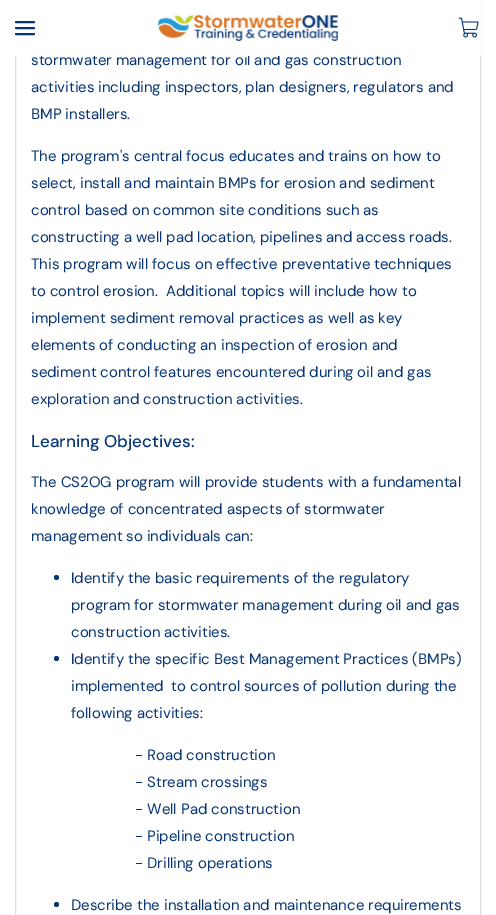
%!PS
<< /PageSize [496 915] >> setpagedevice
/rgb { dup -16 bitshift 255 div exch dup -8 bitshift 255 and 255 div exch 255 and 255 div setrgbcolor } def
/font { [ exch dup neg 0 0 3 -1 roll 0 0 ] selectfont } def
/text { moveto show } def
/circle { newpath 0 360 arc closepath } def
/picture { 5 dict begin { /h /w /y /x /name } { exch def } forall
  gsave x y translate w h scale
  w h 8 [w 0 0 h 0 0] name (r) file false 3 colorimage grestore end } def
0 915 translate 1 -1 scale
4 setmiterlimit
/s1 { /DMSans-Regular 15 font 16#083674 rgb } def
/s2 { /DMSans-Medium 17 font 16#083674 rgb } def
16#FFFFFF rgb
0 0 496 915 rectfill
16#DFDDDC rgb
15.5 -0.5 465 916 rectstroke
s1
(stormwater management for oil and gas construction) 31 65 text
16#FFFFFF rgb
15 0 466 56 rectfill
16#083674 rgb
2 setlinewidth
1 setlinecap
1 setlinejoin
16 28 moveto 34 28 lineto 16 22 moveto 34 22 lineto 16 34 moveto 34 34 lineto stroke
(pic1.raw) 158 15 180 26 picture
(pic2.raw) 458 17 21 21 picture
(activities including inspectors, plan designers, regulators and) 31 92 text
(BMP installers.) 31 119 text
(The program's central focus educates and trains on how to) 31 161 text
(select, install and maintain BMPs for erosion and sediment) 31 188 text
(control based on common site conditions such as) 31 215 text
(constructing a well pad location, pipelines and access roads.) 31 242 text
(This program will focus on effective preventative techniques) 31 269 text
(to control erosion.  Additional topics will include how to) 31 296 text
(implement sediment removal practices as well as key) 31 323 text
(elements of conducting an inspection of erosion and) 31 350 text
(sediment control features encountered during oil and gas) 31 377 text
(exploration and construction activities.) 31 404 text
s2
(Learning Objectives:) 31 447 text
s1
(The CS2OG program will provide students with a fundamental) 31 487 text
(knowledge of concentrated aspects of stormwater) 31 514 text
(management so individuals can:) 31 541 text
56.5 577.5 2.5 circle fill
(Identify the basic requirements of the regulatory) 71 583 text
(program for stormwater management during oil and gas) 71 610 text
(construction activities.) 71 637 text
56.5 658.5 2.5 circle fill
(Identify the specific Best Management Practices \(BMPs\)) 71 664 text
(implemented  to control sources of pollution during the) 71 691 text
(following activities:) 71 718 text
(- Road construction) 135 760 text
(- Stream crossings) 135 787 text
(- Well Pad construction) 135 814 text
(- Pipeline construction) 135 841 text
(- Drilling operations) 135 868 text
56.5 904.5 2.5 circle fill
(Describe the installation and maintenance requirements) 71 910 text
showpage
